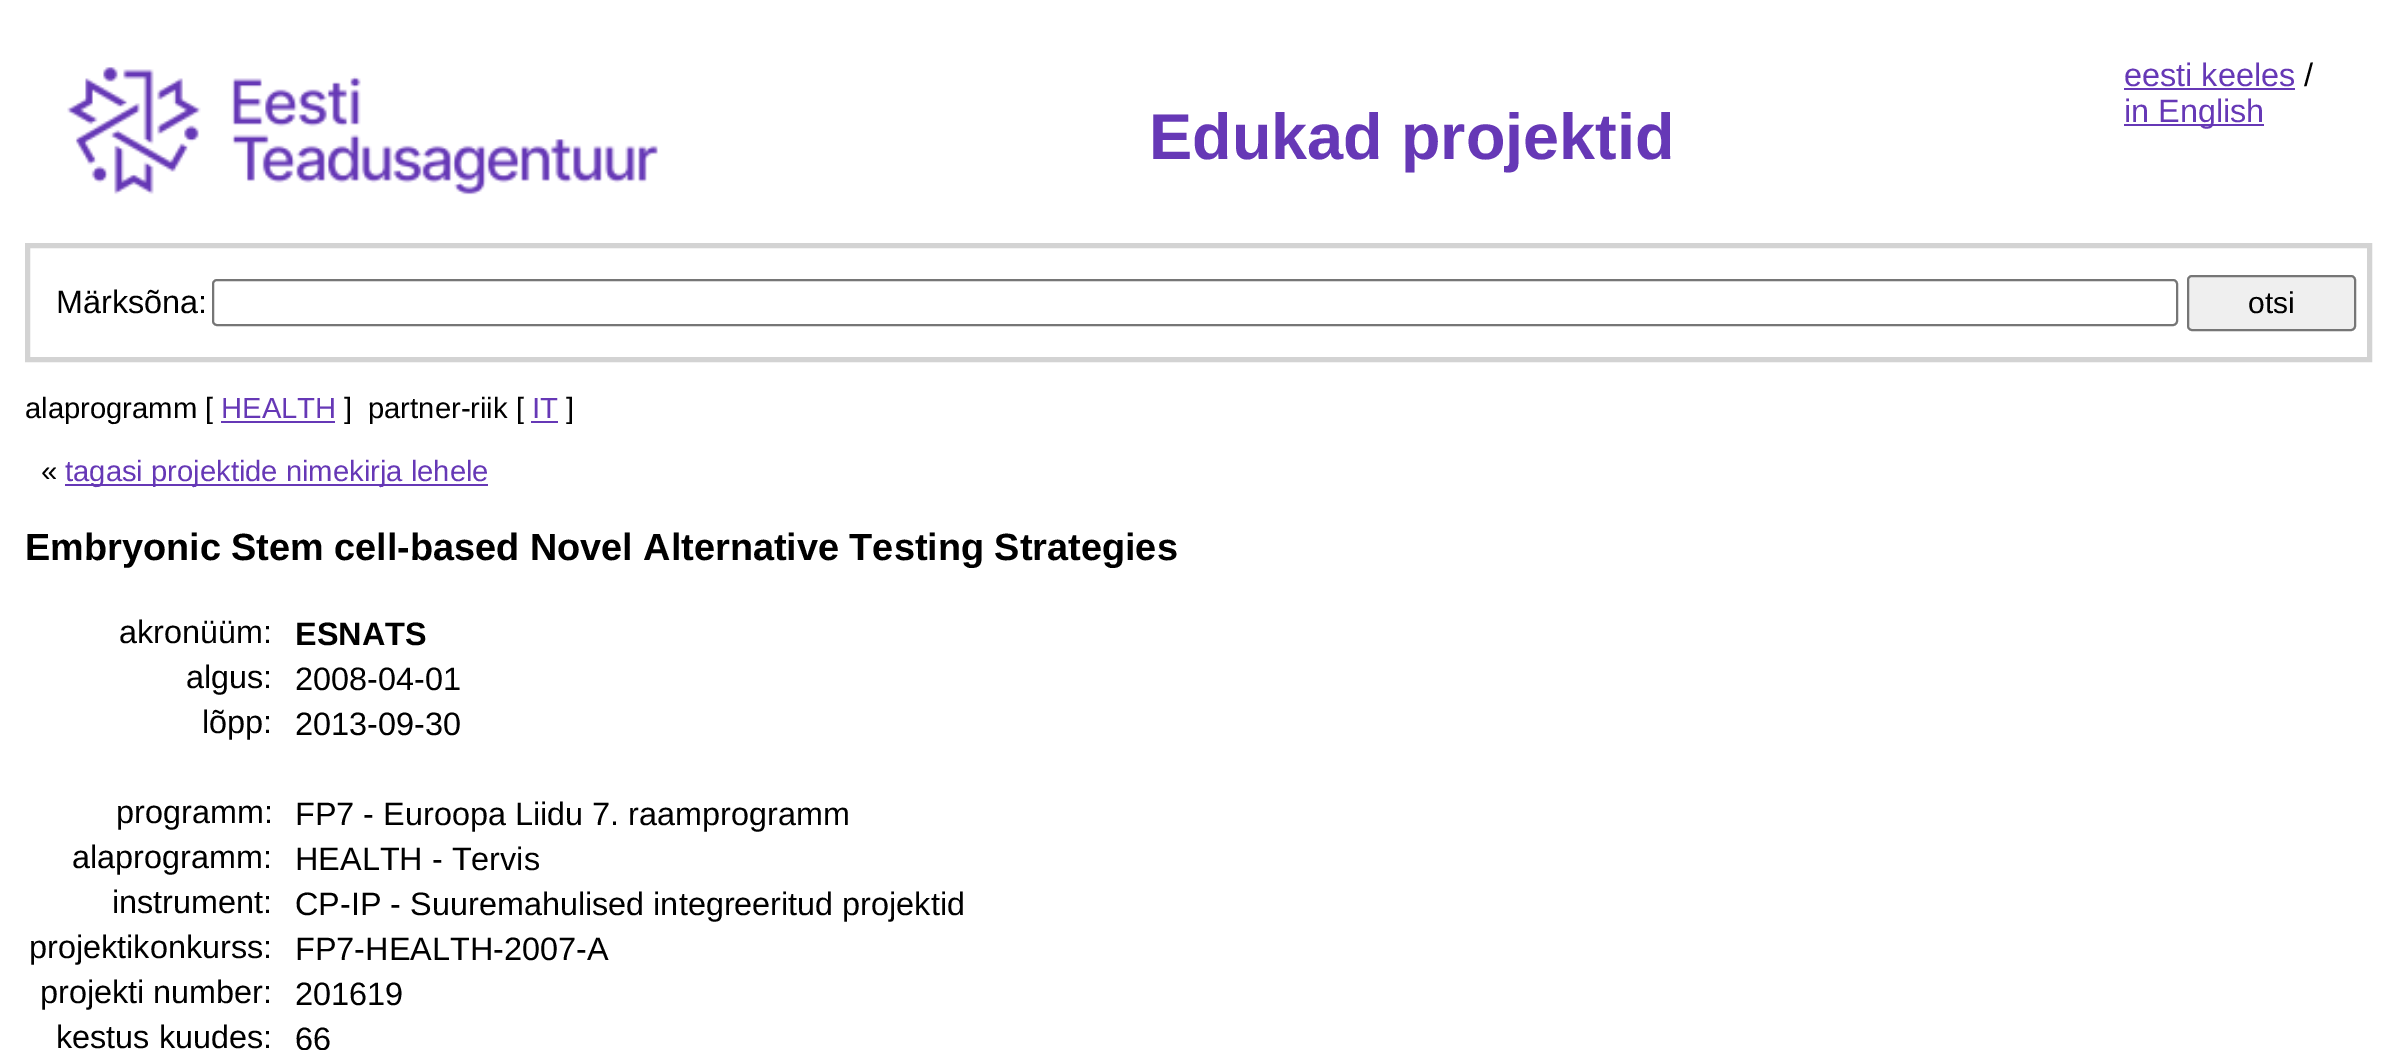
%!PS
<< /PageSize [2387 1050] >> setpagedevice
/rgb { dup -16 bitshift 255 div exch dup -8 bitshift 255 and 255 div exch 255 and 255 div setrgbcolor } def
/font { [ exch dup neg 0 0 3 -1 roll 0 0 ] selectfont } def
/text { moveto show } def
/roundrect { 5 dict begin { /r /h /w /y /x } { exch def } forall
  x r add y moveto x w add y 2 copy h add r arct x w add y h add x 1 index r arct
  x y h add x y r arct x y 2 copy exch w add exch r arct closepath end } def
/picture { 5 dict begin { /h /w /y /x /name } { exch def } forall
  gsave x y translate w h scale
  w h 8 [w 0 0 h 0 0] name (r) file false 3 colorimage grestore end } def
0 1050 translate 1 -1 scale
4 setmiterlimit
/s1 { /LiberationSans-Bold 64.75 font 16#6638B6 rgb } def
/s2 { /LiberationSans-Regular 32.4 font 16#6638B6 rgb } def
/s3 { /LiberationSans-Regular 32.4 font 16#000000 rgb } def
/s4 { /LiberationSans-Regular 30 font 16#000000 rgb } def
/s5 { /LiberationSans-Regular 29.2 font 16#000000 rgb } def
/s6 { /LiberationSans-Regular 29.2 font 16#6638B6 rgb } def
/s7 { /LiberationSans-Bold 32.4 font 16#000000 rgb } def
16#FFFFFF rgb
0 0 2387 1050 rectfill
(pic1.raw) 67 67 591 128 picture
s1
(Edukad projektid) 1149 159 text
s2
(eesti keeles) 2124 86 text
2124 88 171 2 rectfill
s3
(/) 2304 86 text
16#6638B6 rgb
2124 124 140 2 rectfill
(in English) 2124 122 text
16#D3D3D3 rgb
5 setlinewidth
27.5 245.5 2342 114 rectstroke
s3
(Märksõna:) 56 313 text
16#767676 rgb
2 setlinewidth
213 280 1964 45 4 roundrect stroke
16#EFEFEF rgb
2188 276 167 54 4 roundrect gsave fill grestore
16#767676 rgb
stroke
s4
(otsi) 2248 313 text
s5
(alaprogramm [) 25 418 text
s6
(HEALTH) 221 418 text
221 421 114 2 rectfill
s5
(]) 344 418 text
(partner-riik [) 368 418 text
s6
(IT) 532 418 text
531 421 27 2 rectfill
s5
(]) 566 418 text
(«) 41 481 text
16#6638B6 rgb
65 484 423 2 rectfill
(tagasi projektide nimekirja lehele) 65 481 text
/LiberationSans-Bold 37.9 font
16#000000 rgb
25 560 moveto -0.25 0 32 (Embryonic Stem cell-based Novel Alternative Testing Strategies) widthshow
s3
(akronüüm:) 119 643 text
s7
(ESNATS) 295 645 text
s3
(algus:) 186 688 text
(2008-04-01) 295 690 text
(lõpp:) 202 733 text
(2013-09-30) 295 735 text
(programm:) 116 823 text
(FP7 - Euroopa Liidu 7. raamprogramm) 295 825 text
(alaprogramm:) 72 868 text
(HEALTH - Tervis) 295 870 text
(instrument:) 112 913 text
(CP-IP - Suuremahulised integreeritud projektid) 295 915 text
(projektikonkurss:) 29 958 text
(FP7-HEALTH-2007-A) 295 960 text
(projekti number:) 40 1003 text
(201619) 295 1005 text
(kestus kuudes:) 56 1048 text
(66) 295 1050 text
showpage
